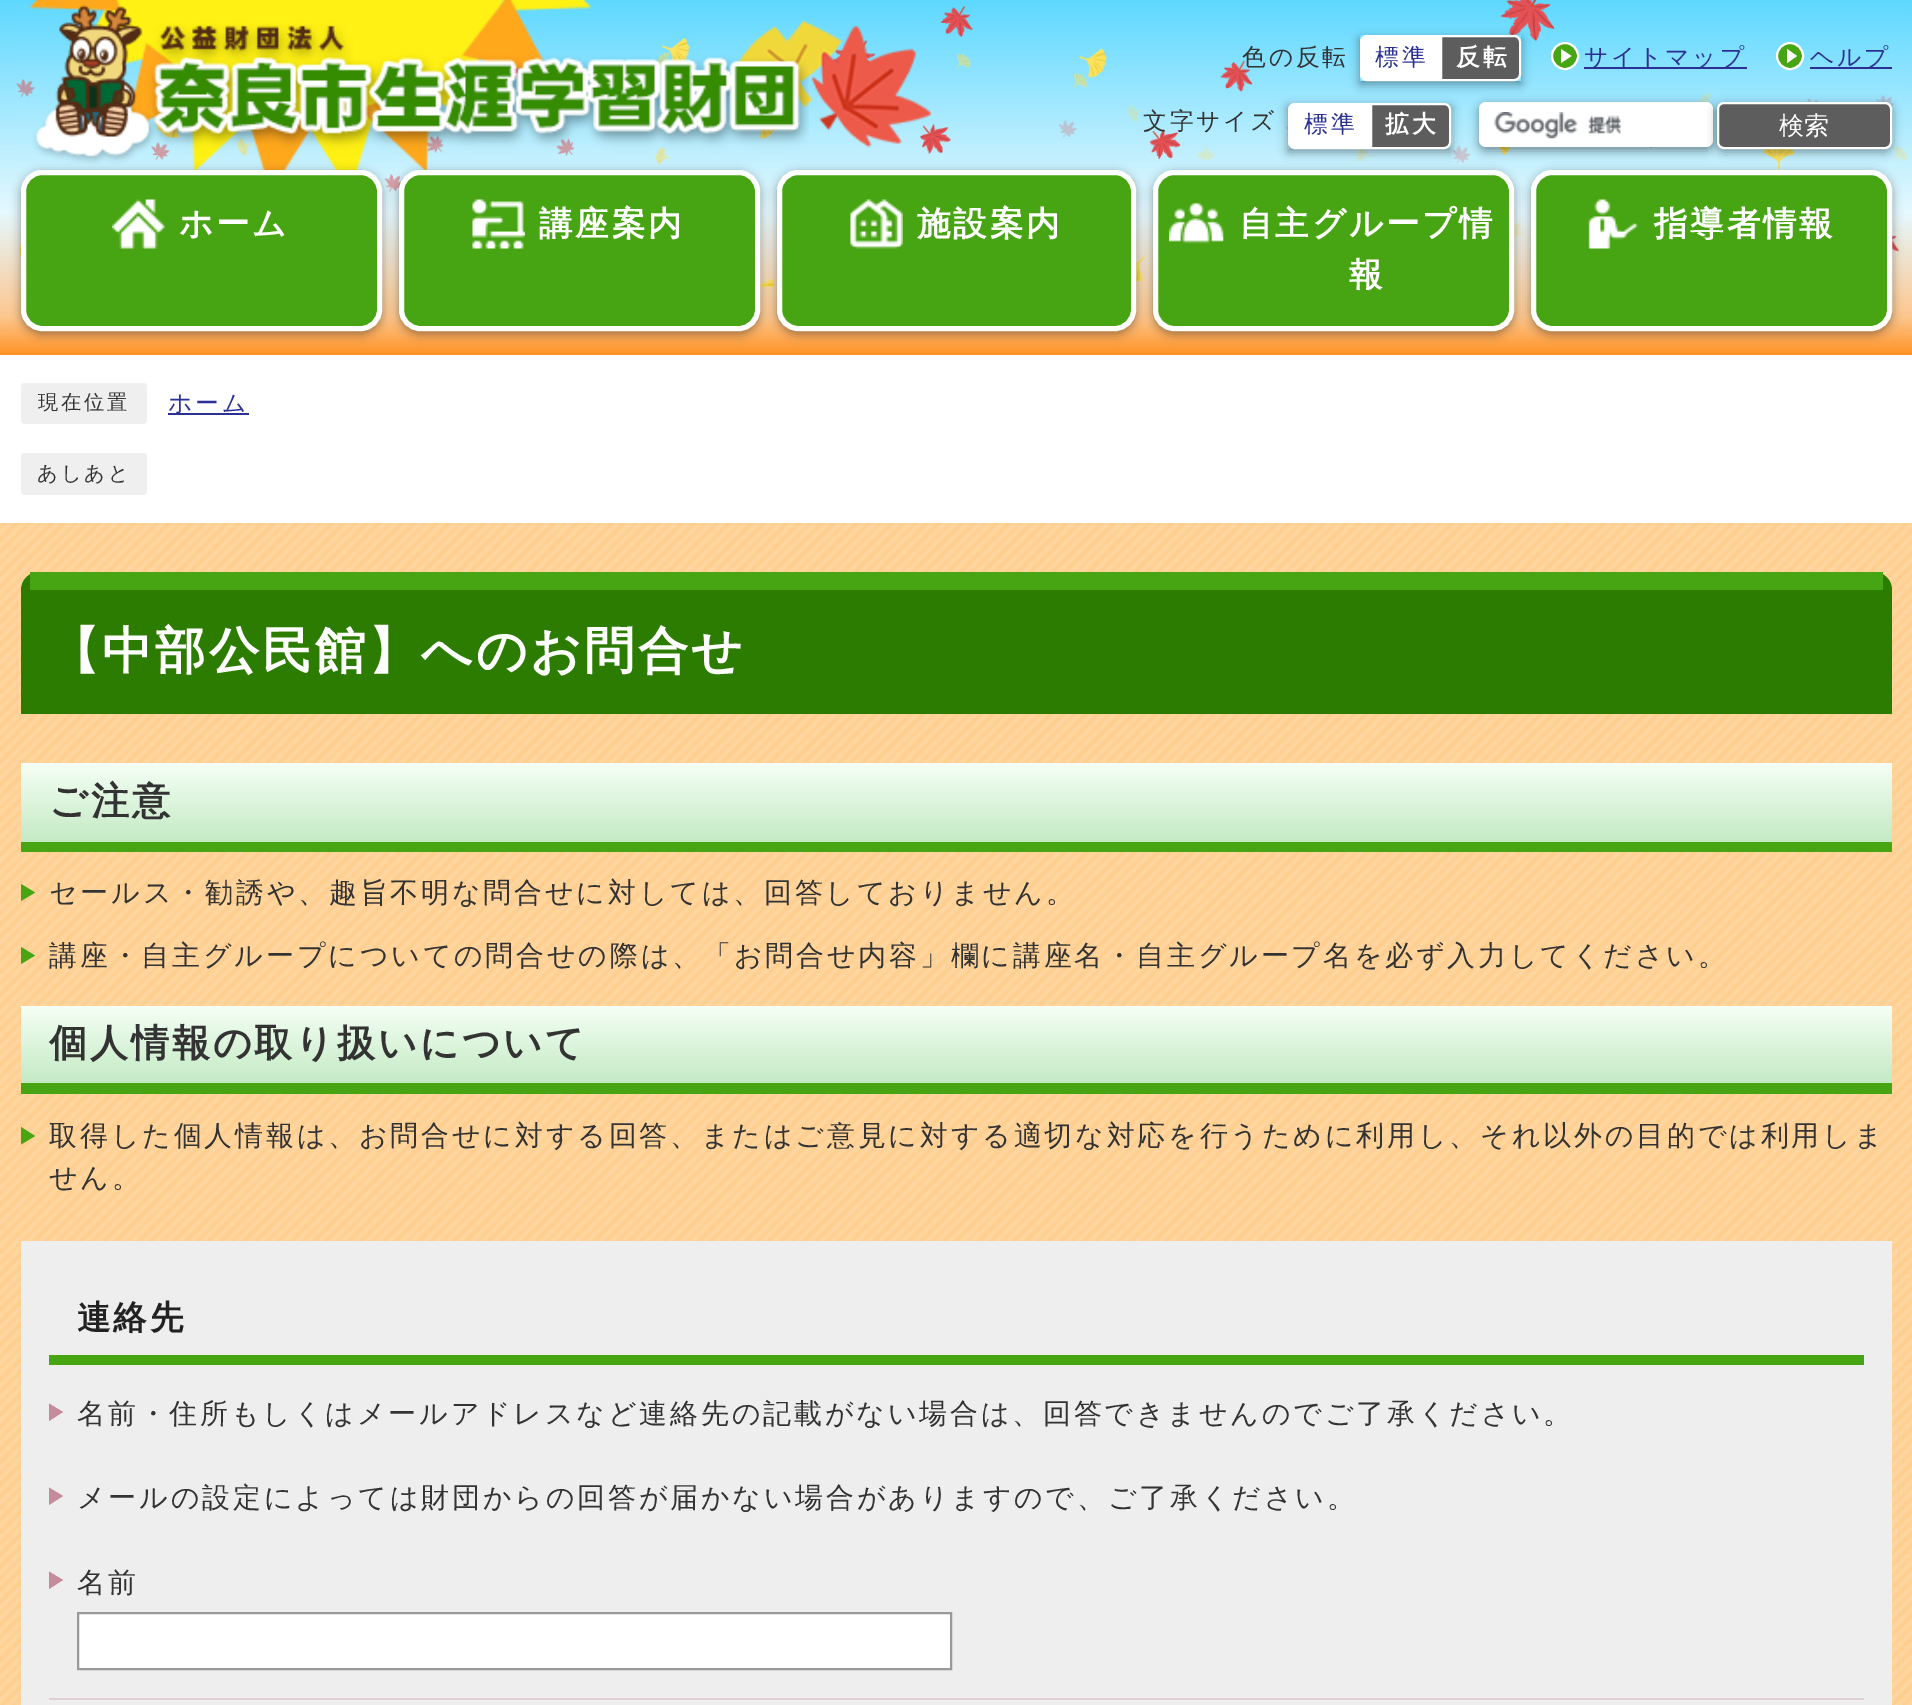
%!PS
<< /PageSize [1912 1705] /PageUsesTransparency true >> setpagedevice
/rgb { dup -16 bitshift 255 div exch dup -8 bitshift 255 and 255 div exch 255 and 255 div setrgbcolor } def
/font { [ exch dup neg 0 0 3 -1 roll 0 0 ] selectfont } def
/text { moveto show } def
/alpha { dup .setfillconstantalpha .setstrokeconstantalpha } def
/circle { newpath 0 360 arc closepath } def
/roundrect { 5 dict begin { /r /h /w /y /x } { exch def } forall
  x r add y moveto x w add y 2 copy h add r arct x w add y h add x 1 index r arct
  x y h add x y r arct x y 2 copy exch w add exch r arct closepath end } def
/shadow { 12 dict begin { /a /b /q /h /w /y /x } { exch def } forall gsave /was 0 def
  9 -2 -9 { dup b mul 4 div /e exch def 1 sub .425 mul 2.718 exch exp 1 add a .99 .min exch div /now exch def
    1 1 now sub 1 was sub div sub alpha /was now def
    w h .min e 2 mul add 0 gt { x e sub y e sub w e 2 mul add h e 2 mul add
      q e add b .6 mul add w h .min 2 div e add .min 0 .max roundrect fill } if } for grestore end } def
/picture { 5 dict begin { /h /w /y /x /name } { exch def } forall
  gsave x y translate w h scale
  w h 8 [w 0 0 h 0 0] name (r) file false 3 colorimage grestore end } def
0 .pushpdf14devicefilter
0 1705 translate 1 -1 scale
4 setmiterlimit
/s1 { /WenQuanYiZenHei-Medium 25 font 16#FFFFFF rgb } def
16#FFFFFF rgb
0 0 1912 1705 rectfill
gsave 0 0 moveto 1912 0 lineto 1912 355 lineto 0 355 lineto closepath clip newpath
<< /ShadingType 2 /ColorSpace /DeviceRGB /Coords [956 0 956 355] /Extend [true true] /Function << /FunctionType 3 /Domain [0 1] /Functions [<< /FunctionType 2 /Domain [0 1] /C0 [0.369 0.847 1] /C1 [0.898 0.973 0.996] /N 1 >> << /FunctionType 2 /Domain [0 1] /C0 [0.898 0.973 0.996] /C1 [0.992 0.78 0.561] /N 1 >> << /FunctionType 2 /Domain [0 1] /C0 [0.992 0.78 0.561] /C1 [1 0.573 0.141] /N 1 >>] /Bounds [0.6 0.89] /Encode [0 1 0 1 0 1] >> >> shfill grestore
(pic1.raw) 16 0 1891 287 picture
(pic3.raw) 736 20 195 128 picture
(pic2.raw) 29 0 780 170 picture
/WenQuanYiZenHei-Medium 23.75 font
16#333333 rgb
1242 65 moveto 2.8 0 (色の反転) ashow
gsave
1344 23 moveto 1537 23 lineto 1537 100 lineto 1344 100 lineto closepath 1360 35 moveto 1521 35 lineto 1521 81 lineto 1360 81 lineto closepath eoclip newpath
16#000000 rgb
1360 39 161 45 0 5 0.4 shadow
grestore
16#FFFFFF rgb
1367 36 moveto 1439 36 lineto 1439 80 lineto 1367 80 lineto 1363.5 80 1361 77.5 1361 74 curveto 1361 42 lineto 1361 38.5 1363.5 36 1367 36 curveto closepath gsave fill grestore
2 setlinewidth
stroke
16#2B3095 rgb
1375 65 moveto 2.8 0 (標準) ashow
16#5D5D5D rgb
1441 36 moveto 1514 36 lineto 1517.5 36 1520 38.5 1520 42 curveto 1520 74 lineto 1520 77.5 1517.5 80 1514 80 curveto 1441 80 lineto closepath gsave fill grestore
16#FFFFFF rgb
stroke
/WenQuanYiZenHei-Bold 23.75 font
1456 65 moveto 2.8 0 (反転) ashow
16#47A413 rgb
1565 56 13 circle gsave fill grestore
16#FFFFFF rgb
stroke
16#2B3095 rgb
1584 67 163 2 rectfill
/WenQuanYiZenHei-Medium 23.75 font
1584 65 moveto 2.8 0 (サイトマップ) ashow
16#FFFFFF rgb
1561 63 moveto 1561 49 lineto 1571.5 56 lineto closepath fill
16#47A413 rgb
1790 56 13 circle gsave fill grestore
16#FFFFFF rgb
stroke
16#2B3095 rgb
1810 67 82 2 rectfill
1810 65 moveto 2.8 0 (ヘルプ) ashow
16#FFFFFF rgb
1787 63 moveto 1787 49 lineto 1797 56 lineto closepath fill
16#333333 rgb
1143 129 moveto 2.8 0 (文字サイズ) ashow
16#000000 rgb
1288 107 163 45 0 5 0.4 shadow
16#FFFFFF rgb
1295 104 moveto 1369 104 lineto 1369 148 lineto 1295 148 lineto 1291.5 148 1289 145.5 1289 142 curveto 1289 110 lineto 1289 106.5 1291.5 104 1295 104 curveto closepath gsave fill grestore
stroke
16#2B3095 rgb
1304 132 moveto 2.8 0 (標準) ashow
16#5D5D5D rgb
1371 104 moveto 1444 104 lineto 1447.5 104 1450 106.5 1450 110 curveto 1450 142 lineto 1450 145.5 1447.5 148 1444 148 curveto 1371 148 lineto closepath gsave fill grestore
16#FFFFFF rgb
stroke
/WenQuanYiZenHei-Bold 23.75 font
1385 132 moveto 2.8 0 (拡大) ashow
16#000000 rgb
1479 105 234 46 7 5 0.4 shadow
16#FFFFFF rgb
1479 102 234 45 7 roundrect fill
(pic4.raw) 1494 112 128 27 picture
16#000000 rgb
1717 105 175 47 7 5 0.4 shadow
16#5D5D5D rgb
1718 103 173 45 6 roundrect gsave fill grestore
16#FFFFFF rgb
stroke
s1
(検索) 1779 134 text
16#000000 rgb
21 173 361 161 21 5 0.4 shadow
16#47A413 rgb
23.5 172.5 356 156 18.5 roundrect gsave fill grestore
16#FFFFFF rgb
5 setlinewidth
stroke
(pic5.raw) 112 199 53 50 picture
/WenQuanYiZenHei-Bold 33.5 font
179 235 moveto 2.8 0 (ホーム) ashow
16#000000 rgb
399 173 361 161 21 5 0.4 shadow
16#47A413 rgb
401.5 172.5 356 156 18.5 roundrect gsave fill grestore
16#FFFFFF rgb
stroke
(pic6.raw) 472 199 53 50 picture
539 235 moveto 2.8 0 (講座案内) ashow
16#000000 rgb
777 173 359 161 21 5 0.4 shadow
16#47A413 rgb
779.5 172.5 354 156 18.5 roundrect gsave fill grestore
16#FFFFFF rgb
stroke
(pic7.raw) 850 199 53 50 picture
917 235 moveto 2.8 0 (施設案内) ashow
16#000000 rgb
1153 173 361 161 21 5 0.4 shadow
16#47A413 rgb
1155.5 172.5 356 156 18.5 roundrect gsave fill grestore
16#FFFFFF rgb
stroke
(pic8.raw) 1169 202 55 42 picture
1239 235 moveto 2.8 0 (自主グループ情) ashow
1349 286 moveto 2.8 0 (報) ashow
16#000000 rgb
1531 173 361 161 21 5 0.4 shadow
16#47A413 rgb
1533.5 172.5 356 156 18.5 roundrect gsave fill grestore
16#FFFFFF rgb
stroke
(pic9.raw) 1588 199 51 50 picture
1654 235 moveto 2.8 0 (指導者情報) ashow
16#EFEFEF rgb
21 383 126 41 4 roundrect fill
/WenQuanYiZenHei-Medium 20.25 font
16#333333 rgb
38 409 moveto 2.8 0 (現在位置) ashow
16#2B3095 rgb
168 413 81 2 rectfill
/WenQuanYiZenHei-Medium 23.75 font
168 411 moveto 2.8 0 (ホーム) ashow
16#EFEFEF rgb
21 453 126 42 4 roundrect fill
/WenQuanYiZenHei-Medium 20.25 font
16#333333 rgb
37 480 moveto 2.8 0 (あしあと) ashow
16#FFCE8E rgb
0 523 1912 1182 rectfill
(pic10.raw) 0 523 1912 1182 picture
16#2B7C00 rgb
39 572 moveto 1874 572 lineto 1884 572 1892 580 1892 590 curveto 1892 714 lineto 21 714 lineto 21 590 lineto 21 580 29 572 39 572 curveto closepath fill
16#47A413 rgb
30 572 1853 18 rectfill
/WenQuanYiZenHei-Bold 50.4 font
16#FFFFFF rgb
49 668 moveto 2.8 0 (【中部公民館】へのお問合せ) ashow
gsave 21 763 moveto 1892 763 lineto 1892 842 lineto 21 842 lineto closepath clip newpath
<< /ShadingType 2 /ColorSpace /DeviceRGB /Coords [956 763 956 842] /Extend [true true] /Function << /FunctionType 2 /Domain [0 1] /C0 [0.961 1 0.961] /C1 [0.769 0.918 0.769] /N 1 >> >> shfill grestore
16#47A413 rgb
21 842 1871 10 rectfill
/WenQuanYiZenHei-Bold 38.1 font
16#333333 rgb
49 814 moveto 2.8 0 (ご注意) ashow
16#47A413 rgb
21 901 moveto 21 884 lineto 35 892.5 lineto closepath fill
/WenQuanYiZenHei-Medium 28 font
16#333333 rgb
49 902 moveto 2.8 0 (セールス・勧誘や、趣旨不明な問合せに対しては、回答しておりません。) ashow
16#47A413 rgb
21 964 moveto 21 947 lineto 35 955.5 lineto closepath fill
16#333333 rgb
49 965 moveto 2.8 0 (講座・自主グループについての問合せの際は、「お問合せ内容」欄に講座名・自主グループ名を必ず入力してください。) ashow
gsave 21 1006 moveto 1892 1006 lineto 1892 1083 lineto 21 1083 lineto closepath clip newpath
<< /ShadingType 2 /ColorSpace /DeviceRGB /Coords [956 1006 956 1083] /Extend [true true] /Function << /FunctionType 2 /Domain [0 1] /C0 [0.961 1 0.961] /C1 [0.769 0.918 0.769] /N 1 >> >> shfill grestore
16#47A413 rgb
21 1083 1871 11 rectfill
/WenQuanYiZenHei-Bold 38.1 font
16#333333 rgb
49 1056 moveto 2.8 0 (個人情報の取り扱いについて) ashow
16#47A413 rgb
21 1144.5 moveto 21 1127 lineto 35 1136 lineto closepath fill
/WenQuanYiZenHei-Medium 28 font
16#333333 rgb
49 1145 moveto 2.8 0 (取得した個人情報は、お問合せに対する回答、またはご意見に対する適切な対応を行うために利用し、それ以外の目的では利用しま) ashow
49 1187 moveto 2.8 0 (せん。) ashow
16#EEEEEE rgb
21 1241 1871 464 rectfill
16#47A413 rgb
49 1355 1815 10 rectfill
/WenQuanYiZenHei-Bold 33.5 font
16#222222 rgb
77 1329 moveto 2.8 0 (連絡先) ashow
16#C58B9C rgb
49 1421 moveto 49 1403.5 lineto 63 1412 lineto closepath fill
/WenQuanYiZenHei-Medium 28 font
16#333333 rgb
77 1423 moveto 2.8 0 (名前・住所もしくはメールアドレスなど連絡先の記載がない場合は、回答できませんのでご了承ください。) ashow
16#C58B9C rgb
49 1505 moveto 49 1487.5 lineto 63 1496 lineto closepath fill
16#333333 rgb
77 1507 moveto 2.8 0 (メールの設定によっては財団からの回答が届かない場合がありますので、ご了承ください。) ashow
16#DFD0D8 rgb
49 1698 1815 2 rectfill
16#C58B9C rgb
49 1589 moveto 49 1571.5 lineto 63 1580 lineto closepath fill
16#333333 rgb
77 1592 moveto 2.8 0 (名前) ashow
16#FFFFFF rgb
78 1613 moveto 951 1613 lineto 951 1669 lineto 78 1669 lineto closepath gsave fill grestore
16#999999 rgb
2 setlinewidth
stroke
.poppdf14devicefilter showpage
